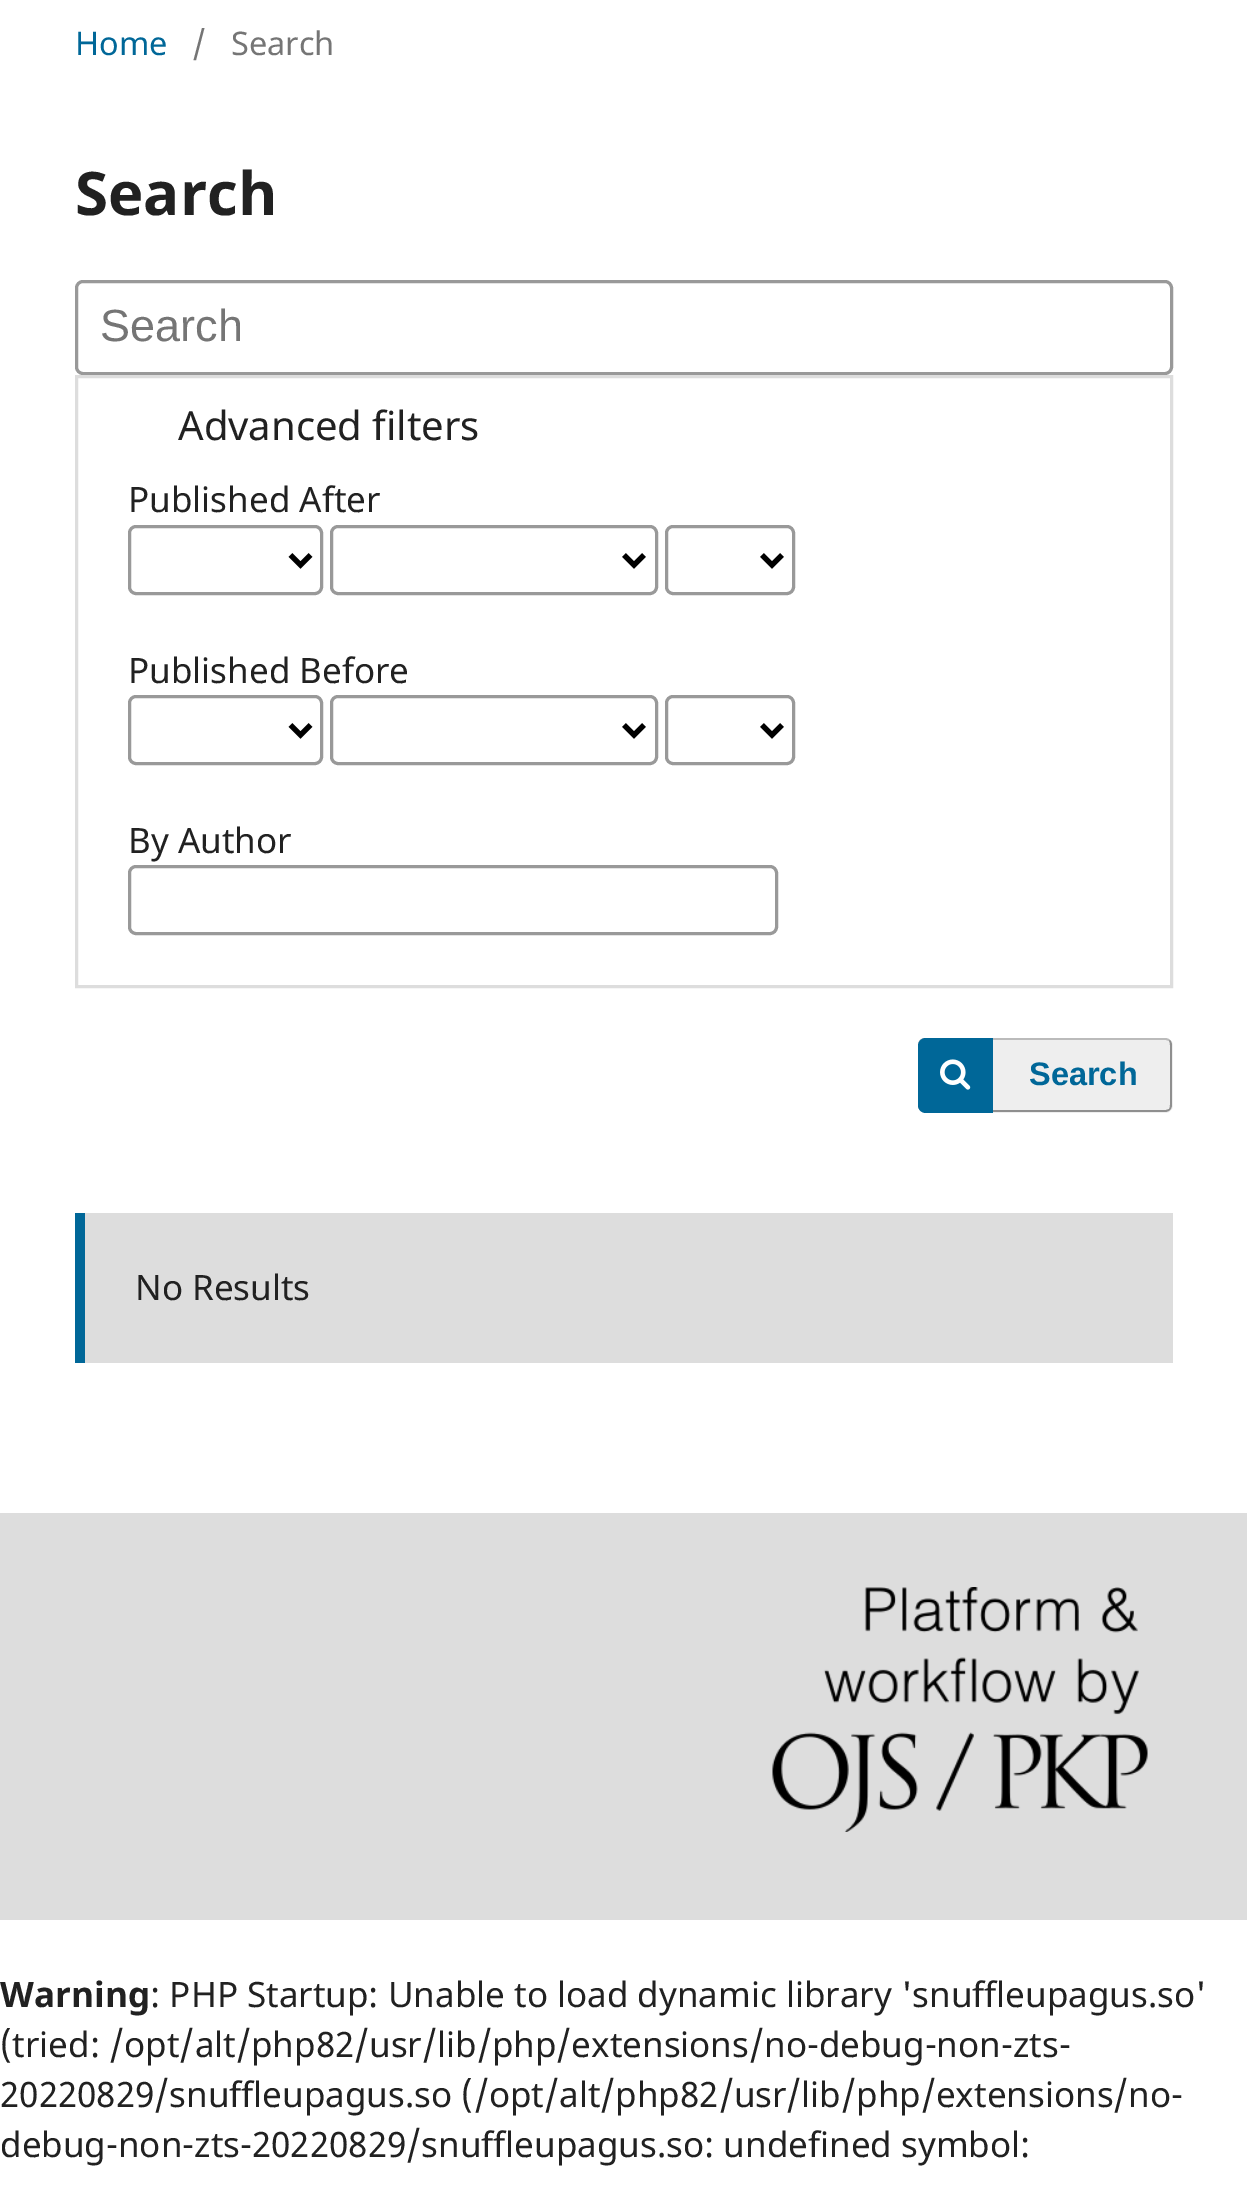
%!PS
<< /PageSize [1247 2185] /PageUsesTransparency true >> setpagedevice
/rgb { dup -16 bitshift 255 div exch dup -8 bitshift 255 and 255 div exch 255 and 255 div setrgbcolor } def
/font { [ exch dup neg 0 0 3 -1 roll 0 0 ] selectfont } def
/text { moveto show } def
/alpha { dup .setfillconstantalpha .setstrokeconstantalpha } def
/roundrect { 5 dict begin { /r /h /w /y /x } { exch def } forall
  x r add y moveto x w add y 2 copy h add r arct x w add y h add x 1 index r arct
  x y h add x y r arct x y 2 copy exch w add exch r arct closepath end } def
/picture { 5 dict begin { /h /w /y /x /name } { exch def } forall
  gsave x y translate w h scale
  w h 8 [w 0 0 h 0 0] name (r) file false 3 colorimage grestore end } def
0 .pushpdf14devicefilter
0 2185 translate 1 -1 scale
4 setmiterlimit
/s1 { /NotoSans-Regular 32.5 font 16#006798 rgb } def
/s2 { /NotoSans-Regular 32.5 font 16#757575 rgb } def
/s3 { /NotoSans-Bold 60 font 16#212121 rgb } def
/s4 { /LiberationSans-Regular 45 font 16#757575 rgb } def
/s5 { /NotoSans-Regular 40 font 16#212121 rgb } def
/s6 { /NotoSans-Regular 35 font 16#212121 rgb } def
/s7 { /LiberationSans-Bold 32.5 font 16#006798 rgb } def
/s8 { /NotoSans-Bold 35 font 16#212121 rgb } def
16#FFFFFF rgb
0 0 1247 2185 rectfill
s1
(Home) 75 55 text
s2
(/) 192 55 text
(Search) 231 55 text
s3
(Search) 75 215 text
16#999999 rgb
3 setlinewidth
76.5 281.5 1095 92 6.5 roundrect stroke
s4
(Search) 100 341 text
16#DDDDDD rgb
76.5 376.5 1095 610 rectstroke
s5
(Advanced filters) 178 440 text
s6
(Published After) 128 512 text
16#999999 rgb
129.5 526.5 192 67 6.5 roundrect stroke
16#000000 rgb
5 setlinewidth
290.5 555 moveto 300.5 565 lineto 310.5 555 lineto stroke
16#999999 rgb
3 setlinewidth
331.5 526.5 325 67 6.5 roundrect stroke
16#000000 rgb
5 setlinewidth
624 555 moveto 634 565 lineto 644 555 lineto stroke
16#999999 rgb
3 setlinewidth
666.5 526.5 127 67 6.5 roundrect stroke
16#000000 rgb
5 setlinewidth
762 555 moveto 772 565 lineto 782 555 lineto stroke
s6
(Published Before) 128 683 text
16#999999 rgb
3 setlinewidth
129.5 696.5 192 67 6.5 roundrect stroke
16#000000 rgb
5 setlinewidth
290.5 725 moveto 300.5 735 lineto 310.5 725 lineto stroke
16#999999 rgb
3 setlinewidth
331.5 696.5 325 67 6.5 roundrect stroke
16#000000 rgb
5 setlinewidth
624 725 moveto 634 735 lineto 644 725 lineto stroke
16#999999 rgb
3 setlinewidth
666.5 696.5 127 67 6.5 roundrect stroke
16#000000 rgb
5 setlinewidth
762 725 moveto 772 735 lineto 782 725 lineto stroke
s6
(By Author) 128 853 text
16#999999 rgb
3 setlinewidth
129.5 866.5 647 67 6.5 roundrect stroke
16#EEEEEE rgb
918 1038 255 75 8 roundrect fill
16#BBBBBB rgb
925 1038 moveto 1165 1038 lineto 1167 1038 1169 1039 1170 1040 curveto 1169 1041 lineto 1166 1040 lineto 965 1040 lineto 951 1040 918 1035 918 1045 curveto 918 1041 921 1038 925 1038 curveto closepath fill
0.4 alpha
16#000000 rgb
1170 1040 moveto 1171 1041 1172 1043 1172 1045 curveto 1172 1105 lineto 1172 1107 1171 1109 1170 1110 curveto 1169 1109 lineto 1170 1108 1170 1106 1170 1105 curveto 1170 1045 lineto 1170 1044 1170 1042 1169 1041 curveto closepath fill
1170 1110 moveto 1169 1109 lineto 1166 1110 lineto 965 1110 lineto 951 1110 918 1115 918 1105 curveto 918 1109 921 1112 925 1112 curveto 1165 1112 lineto 1167 1112 1169 1111 1170 1110 curveto closepath fill
1 alpha
16#006798 rgb
926 1038 moveto 993 1038 lineto 993 1113 lineto 926 1113 lineto 921.5 1113 918 1109.5 918 1105 curveto 918 1046 lineto 918 1041.5 921.5 1038 926 1038 curveto closepath fill
(pic1.raw) 940 1059 31 31 picture
s7
(Search) 1029 1085 text
16#DDDDDD rgb
85 1213 1088 150 rectfill
16#006798 rgb
75 1213 10 150 rectfill
s6
(No Results) 135 1300 text
16#DDDDDD rgb
0 1513 1247 407 rectfill
(pic2.raw) 772 1587 376 245 picture
s8
(Warning) 0 2007 text
s6
(: PHP Startup: Unable to load dynamic library 'snuffleupagus.so') 150 2007 text
(\(tried: /opt/alt/php82/usr/lib/php/extensions/no-debug-non-zts-) 0 2057 text
(20220829/snuffleupagus.so \(/opt/alt/php82/usr/lib/php/extensions/no-) 0 2107 text
(debug-non-zts-20220829/snuffleupagus.so: undefined symbol:) 0 2157 text
.poppdf14devicefilter showpage
